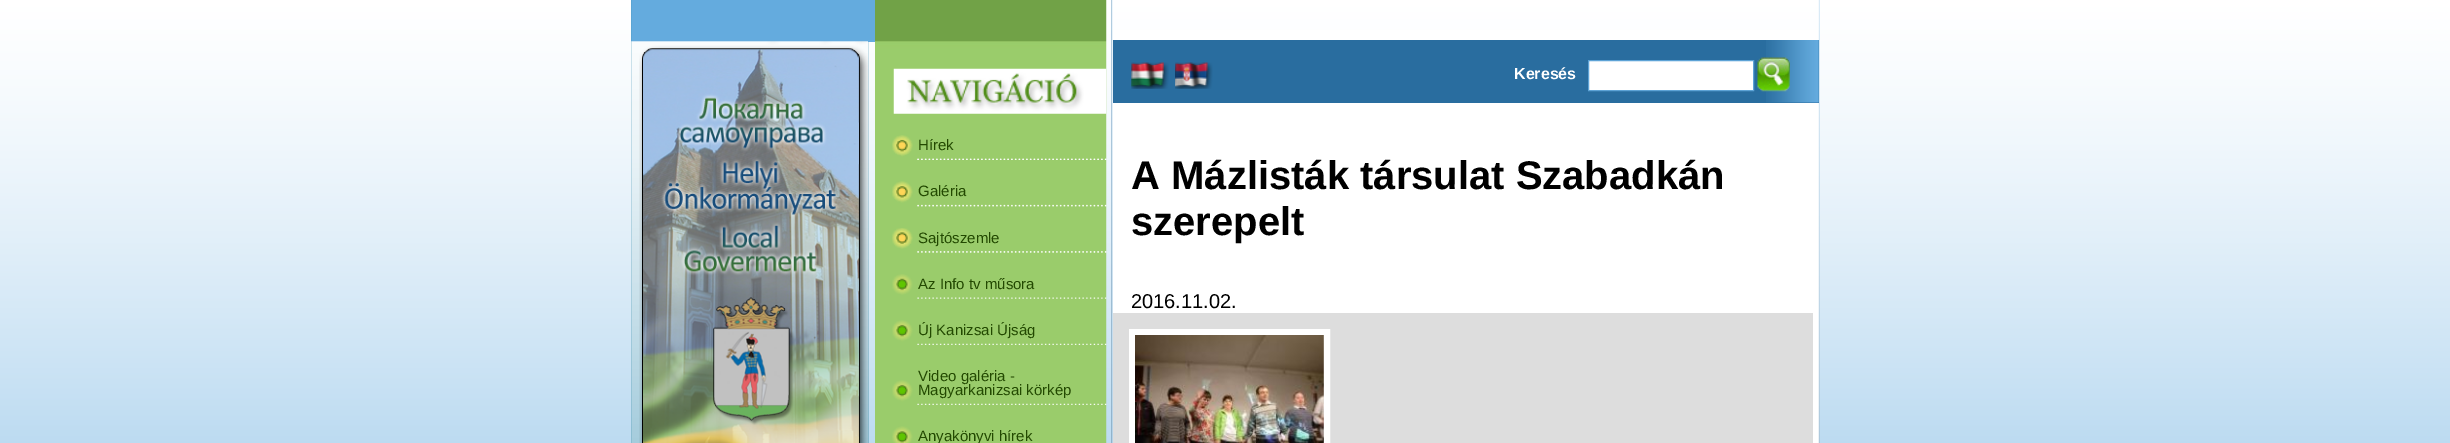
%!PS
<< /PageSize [2450 443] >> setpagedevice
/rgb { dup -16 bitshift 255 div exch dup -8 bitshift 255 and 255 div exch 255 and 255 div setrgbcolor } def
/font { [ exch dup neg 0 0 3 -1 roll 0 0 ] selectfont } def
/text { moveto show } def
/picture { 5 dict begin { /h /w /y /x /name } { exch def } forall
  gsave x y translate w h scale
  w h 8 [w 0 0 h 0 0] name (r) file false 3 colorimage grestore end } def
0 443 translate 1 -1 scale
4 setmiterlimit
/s1 { /LiberationSans-Regular 15 font 16#234901 rgb } def
/s2 { /LiberationSans-Bold 16 font 16#FFFFFF rgb } def
/s3 { /LiberationSans-Bold 40 font 16#000000 rgb } def
/s4 { /LiberationSans-Regular 20 font 16#000000 rgb } def
16#FFFFFF rgb
0 0 2450 443 rectfill
(pic1.raw) 0 0 2450 443 picture
(pic2.raw) 631 0 238 443 picture
16#64ABDE rgb
868 0 7 42 rectfill
(pic3.raw) 639 41 230 402 picture
(pic4.raw) 875 0 232 443 picture
(pic5.raw) 893 68 214 46 picture
(pic6.raw) 892 135 215 25 picture
(pic7.raw) 892 135 215 25 picture
s1
(Hírek) 918 150 text
(pic8.raw) 892 181 215 26 picture
(pic9.raw) 892 181 215 26 picture
(Galéria) 918 196 text
(pic10.raw) 892 228 215 25 picture
(pic11.raw) 892 228 215 25 picture
(Sajtószemle) 918 243 text
(pic12.raw) 892 274 215 25 picture
(Az Info tv műsora) 918 289 text
(pic13.raw) 892 320 215 25 picture
(Új Kanizsai Újság) 918 335 text
(pic14.raw) 892 380 215 25 picture
(Video galéria -) 918 381 text
(Magyarkanizsai körkép) 918 395 text
(pic15.raw) 892 426 21 17 picture
(Anyakönyvi hírek) 918 441 text
(pic16.raw) 1111 0 2 443 picture
16#FFFFFF rgb
1113 30 706 413 rectfill
(pic22.raw) 1818 0 2 443 picture
16#296D9F rgb
1113 40 706 63 rectfill
(pic17.raw) 1766 40 53 63 picture
(pic18.raw) 1131 62 38 27 picture
(pic19.raw) 1175 62 38 27 picture
s2
(Keresés) 1514 79 text
1588.5 60.5 moveto 1753.5 60.5 lineto 1753.5 90.5 lineto 1588.5 90.5 lineto closepath gsave fill grestore
16#5DA3D6 rgb
stroke
(pic20.raw) 1757 57 33 35 picture
s3
(A Mázlisták társulat Szabadkán) 1131 189 text
(szerepelt) 1131 235 text
s4
(2016.11.02.) 1131 308 text
16#DDDDDD rgb
1113 313 700 130 rectfill
16#FFFFFF rgb
6 setlinewidth
1132 332 195 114 rectstroke
(pic21.raw) 1135 335 189 108 picture
showpage
